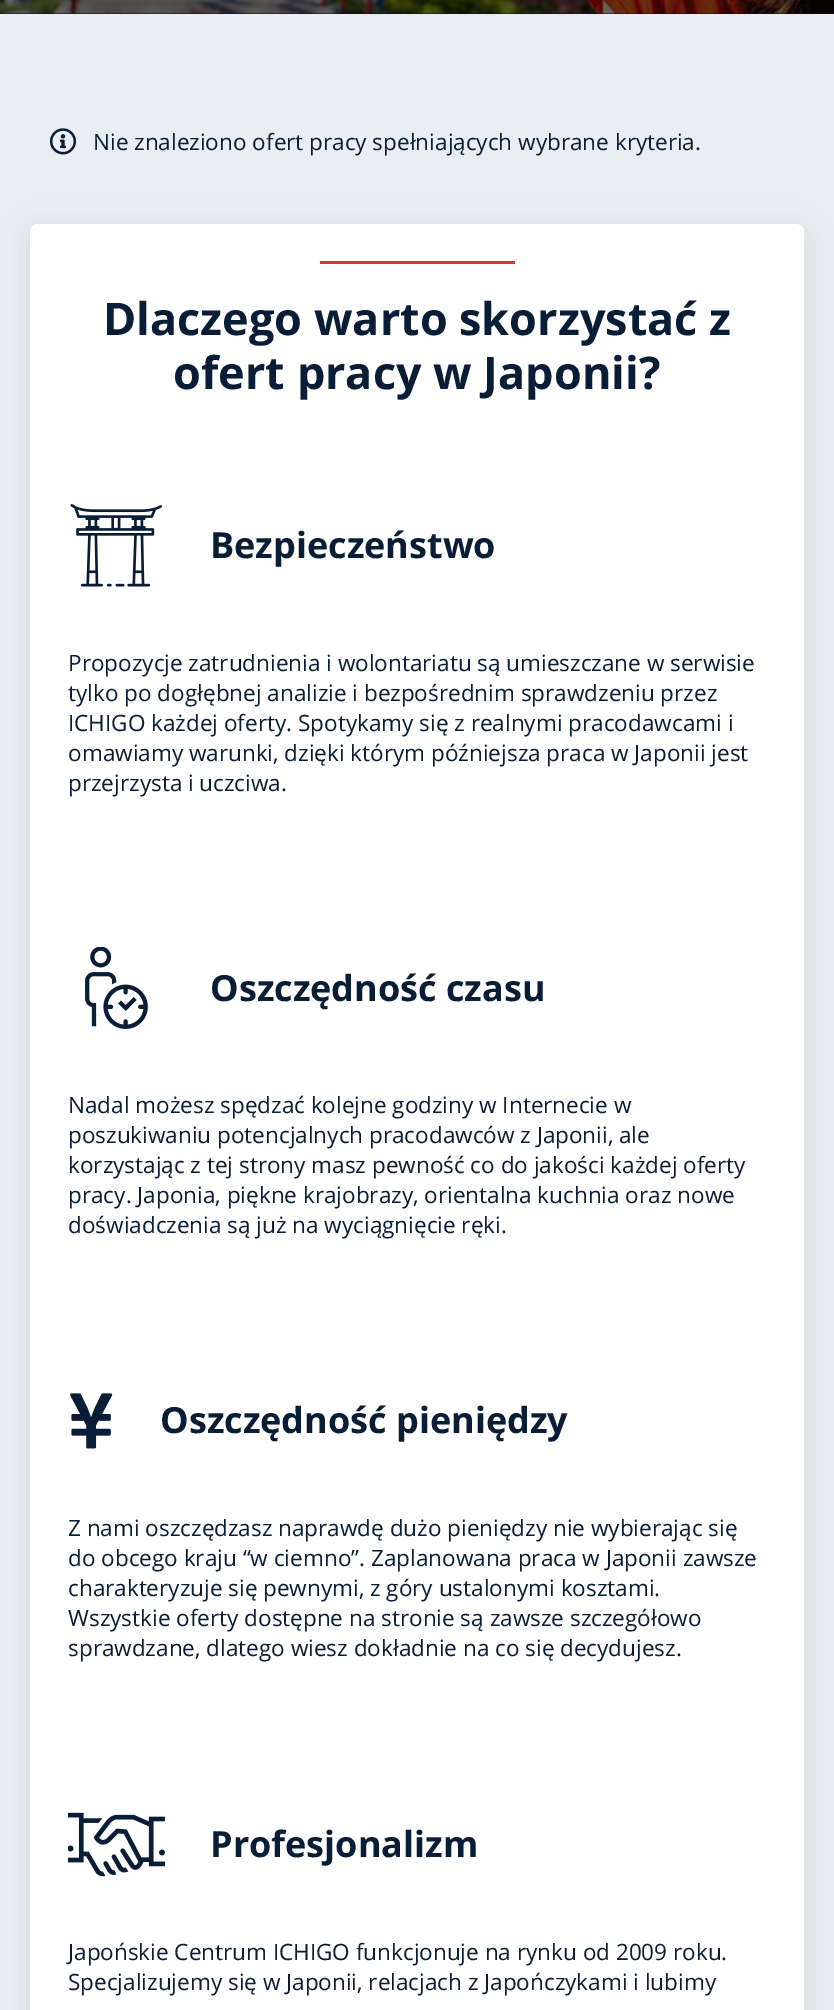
%!PS
<< /PageSize [834 2010] /PageUsesTransparency true >> setpagedevice
/rgb { dup -16 bitshift 255 div exch dup -8 bitshift 255 and 255 div exch 255 and 255 div setrgbcolor } def
/font { [ exch dup neg 0 0 3 -1 roll 0 0 ] selectfont } def
/text { moveto show } def
/alpha { dup .setfillconstantalpha .setstrokeconstantalpha } def
/roundrect { 5 dict begin { /r /h /w /y /x } { exch def } forall
  x r add y moveto x w add y 2 copy h add r arct x w add y h add x 1 index r arct
  x y h add x y r arct x y 2 copy exch w add exch r arct closepath end } def
/shadow { 12 dict begin { /a /b /q /h /w /y /x } { exch def } forall gsave /was 0 def
  9 -2 -9 { dup b mul 4 div /e exch def 1 sub .425 mul 2.718 exch exp 1 add a .99 .min exch div /now exch def
    1 1 now sub 1 was sub div sub alpha /was now def
    w h .min e 2 mul add 0 gt { x e sub y e sub w e 2 mul add h e 2 mul add
      q e add b .6 mul add w h .min 2 div e add .min 0 .max roundrect fill } if } for grestore end } def
/picture { 5 dict begin { /h /w /y /x /name } { exch def } forall
  gsave x y translate w h scale
  w h 8 [w 0 0 h 0 0] name (r) file false 3 colorimage grestore end } def
0 .pushpdf14devicefilter
0 2010 translate 1 -1 scale
4 setmiterlimit
/s1 { /OpenSans-Regular 22.5 font 16#091E36 rgb } def
/s2 { /OpenSans-Bold 45 font 16#091E36 rgb } def
/s3 { /OpenSans-Bold 36 font 16#091E36 rgb } def
16#EAEEF3 rgb
0 0 834 2010 rectfill
16#051324 rgb
0 13 834 1 rectfill
(pic1.raw) 0 0 834 14 picture
(pic2.raw) 49 128 28 27 picture
s1
(Nie znaleziono ofert pracy spełniających wybrane kryteria.) 93 150 text
16#000000 rgb
30 231 774 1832 8 15 0.08 shadow
16#FFFFFF rgb
30 224 774 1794 8 roundrect fill
16#E73131 rgb
320 261 195 3 rectfill
s2
(Dlaczego warto skorzystać z) 103 335 text
(ofert pracy w Japonii?) 173 389 text
(pic3.raw) 70 504 92 83 picture
s3
(Bezpieczeństwo) 210 558 text
s1
(Propozycje zatrudnienia i wolontariatu są umieszczane w serwisie) 68 671 text
(tylko po dogłębnej analizie i bezpośrednim sprawdzeniu przez) 68 701 text
(ICHIGO każdej oferty. Spotykamy się z realnymi pracodawcami i) 68 731 text
(omawiamy warunki, dzięki którym późniejsza praca w Japonii jest) 68 761 text
(przejrzysta i uczciwa.) 68 791 text
(pic4.raw) 85 947 63 82 picture
s3
(Oszczędność czasu) 210 1001 text
s1
(Nadal możesz spędzać kolejne godziny w Internecie w) 68 1113 text
(poszukiwaniu potencjalnych pracodawców z Japonii, ale) 68 1143 text
(korzystając z tej strony masz pewność co do jakości każdej oferty) 68 1173 text
(pracy. Japonia, piękne krajobrazy, orientalna kuchnia oraz nowe) 68 1203 text
(doświadczenia są już na wyciągnięcie ręki.) 68 1233 text
(pic5.raw) 70 1393 43 56 picture
s3
(Oszczędność pieniędzy) 160 1433 text
s1
(Z nami oszczędzasz naprawdę dużo pieniędzy nie wybierając się) 68 1536 text
(do obcego kraju “w ciemno”. Zaplanowana praca w Japonii zawsze) 68 1566 text
(charakteryzuje się pewnymi, z góry ustalonymi kosztami.) 68 1596 text
(Wszystkie oferty dostępne na stronie są zawsze szczegółowo) 68 1626 text
(sprawdzane, dlatego wiesz dokładnie na co się decydujesz.) 68 1656 text
(pic6.raw) 68 1812 97 65 picture
s3
(Profesjonalizm) 210 1857 text
s1
(Japońskie Centrum ICHIGO funkcjonuje na rynku od 2009 roku.) 68 1960 text
(Specjalizujemy się w Japonii, relacjach z Japończykami i lubimy) 68 1990 text
.poppdf14devicefilter showpage
